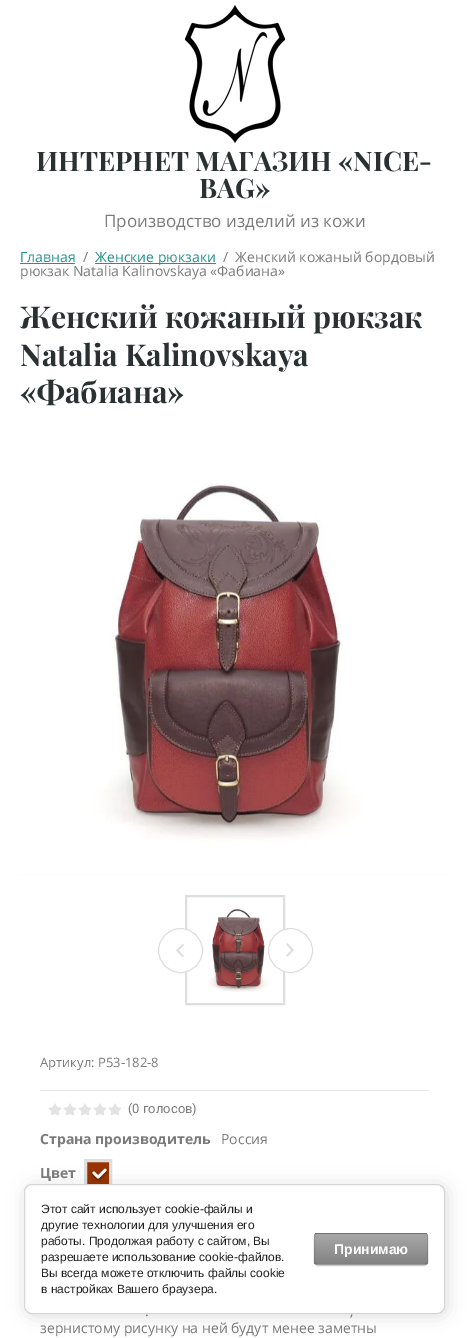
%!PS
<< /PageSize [469 1338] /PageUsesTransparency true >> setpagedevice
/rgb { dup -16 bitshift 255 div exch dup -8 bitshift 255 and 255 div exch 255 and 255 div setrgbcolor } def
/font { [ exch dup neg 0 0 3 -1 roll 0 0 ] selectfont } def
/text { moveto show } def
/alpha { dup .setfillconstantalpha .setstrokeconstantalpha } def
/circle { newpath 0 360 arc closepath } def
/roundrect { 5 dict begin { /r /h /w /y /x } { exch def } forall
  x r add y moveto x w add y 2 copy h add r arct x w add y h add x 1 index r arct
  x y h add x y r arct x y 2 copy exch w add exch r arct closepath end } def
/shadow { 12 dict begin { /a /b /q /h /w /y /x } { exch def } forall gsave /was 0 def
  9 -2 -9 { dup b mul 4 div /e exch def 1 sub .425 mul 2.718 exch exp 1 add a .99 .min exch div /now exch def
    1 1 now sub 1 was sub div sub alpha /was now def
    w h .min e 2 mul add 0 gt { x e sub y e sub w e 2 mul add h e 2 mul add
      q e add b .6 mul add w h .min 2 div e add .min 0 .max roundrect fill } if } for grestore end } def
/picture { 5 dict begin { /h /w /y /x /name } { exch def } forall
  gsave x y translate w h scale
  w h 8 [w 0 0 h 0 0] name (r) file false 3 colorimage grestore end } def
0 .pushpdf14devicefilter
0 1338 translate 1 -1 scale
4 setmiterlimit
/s1 { /PlayfairDisplay-Bold 27 font 16#2B3033 rgb } def
/s2 { /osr-Regular 17 font 16#7B7B7B rgb } def
/s3 { /osr-Regular 14 font 16#259190 rgb } def
/s4 { /osr-Regular 14 font 16#7B7B7B rgb } def
/s5 { /PlayfairDisplay-Bold 30 font 16#2B3033 rgb } def
/s6 { /osr-Regular 13 font 16#7B7B7B rgb } def
/s7 { /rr-Regular 13 font 16#7B7B7B rgb } def
/s8 { /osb-Bold 14 font 16#7B7B7B rgb } def
/s9 { /LiberationSans-Regular 12 font 16#212121 rgb } def
/s10 { /LiberationSans-Bold 14 font 16#FFFFFF rgb } def
16#FFFFFF rgb
0 0 469 1338 rectfill
(pic1.raw) 185 5 100 138 picture
s1
(ИНТЕРНЕТ МАГАЗИН «NICE-) 36 171 text
(BAG») 199 198 text
s2
(Производство изделий из кожи) 104 227 text
s3
(Главная) 20 262 text
20 263 55 1 rectfill
s4
(/) 83 262 text
16#259190 rgb
95 263 121 1 rectfill
(Женские рюкзаки) 95 262 text
s4
(/  Женский кожаный бордовый) 223 262 text
(рюкзак Natalia Kalinovskaya «Фабиана») 20 276 text
s5
(Женский кожаный рюкзак) 20 328 text
(Natalia Kalinovskaya) 20 366 text
(«Фабиана») 20 403 text
(pic2.raw) 20 483 429 392 picture
16#DEDEDE rgb
2 setlinewidth
186 896 98 108 rectstroke
16#FFFFFF rgb
180.5 950.5 22 circle gsave fill grestore
16#DEDEDE rgb
1 setlinewidth
stroke
(pic3.raw) 176 943 8 14 picture
(pic4.raw) 208 909 61 83 picture
16#FFFFFF rgb
290.5 950.5 22 circle gsave fill grestore
16#DEDEDE rgb
stroke
(pic5.raw) 286 943 8 14 picture
16#E5E5E5 rgb
40 1090 389 1 rectfill
s6
(Артикул: Р53-182-8) 40 1067 text
(pic6.raw) 48 1103 73 12 picture
s7
(\(0 голосов\)) 128 1113 text
s8
(Страна производитель) 40 1144 text
s4
(Россия) 221 1144 text
s8
(Цвет) 40 1178 text
16#993300 rgb
86.5 1161.5 moveto 109.5 1161.5 lineto 109.5 1184.5 lineto 86.5 1184.5 lineto closepath gsave fill grestore
16#DEDEDE rgb
stroke
(pic7.raw) 90 1168 19 14 picture
2 setlinewidth
85 1160 26 26 rectstroke
s4
(.) 145 1316 text
(,) 350 1316 text
(зернистому рисунку на ней будут менее заметны) 40 1333 text
16#000000 rgb
26 1186 421 130 8 9 0.14 shadow
16#FFFFFF rgb
24.5 1184.5 420 129 7.5 roundrect gsave fill grestore
16#D6D6D6 rgb
1 setlinewidth
stroke
s9
(Этот сайт использует cookie-файлы и) 41 1213 text
(другие технологии для улучшения его) 41 1229 text
(работы. Продолжая работу с сайтом, Вы) 41 1245 text
(разрешаете использование cookie-файлов.) 41 1261 text
(Вы всегда можете отключить файлы cookie) 41 1277 text
(в настройках Вашего браузера.) 41 1293 text
16#000000 rgb
314 1234 114 32 4 0.5 0.2 shadow
gsave
314 1233 114 32 4 roundrect clip newpath
gsave 314 1233 moveto 428 1233 lineto 428 1234 lineto 314 1234 lineto closepath clip newpath
<< /ShadingType 2 /ColorSpace /DeviceRGB /Coords [371 1204 371 1234] /Extend [true true] /Function << /FunctionType 2 /Domain [0 1] /C0 [0.659 0.659 0.659] /C1 [0.51 0.51 0.51] /N 1 >> >> shfill grestore
gsave 314 1234 moveto 428 1234 lineto 428 1264 lineto 314 1264 lineto closepath clip newpath
<< /ShadingType 2 /ColorSpace /DeviceRGB /Coords [371 1234 371 1264] /Extend [true true] /Function << /FunctionType 2 /Domain [0 1] /C0 [0.659 0.659 0.659] /C1 [0.51 0.51 0.51] /N 1 >> >> shfill grestore
gsave 314 1264 moveto 428 1264 lineto 428 1265 lineto 314 1265 lineto closepath clip newpath
<< /ShadingType 2 /ColorSpace /DeviceRGB /Coords [371 1264 371 1294] /Extend [true true] /Function << /FunctionType 2 /Domain [0 1] /C0 [0.659 0.659 0.659] /C1 [0.51 0.51 0.51] /N 1 >> >> shfill grestore
grestore
0.1 alpha
314.5 1233.5 113 31 3.5 roundrect stroke
1 alpha
s10
(Принимаю) 334 1254 text
.poppdf14devicefilter showpage
